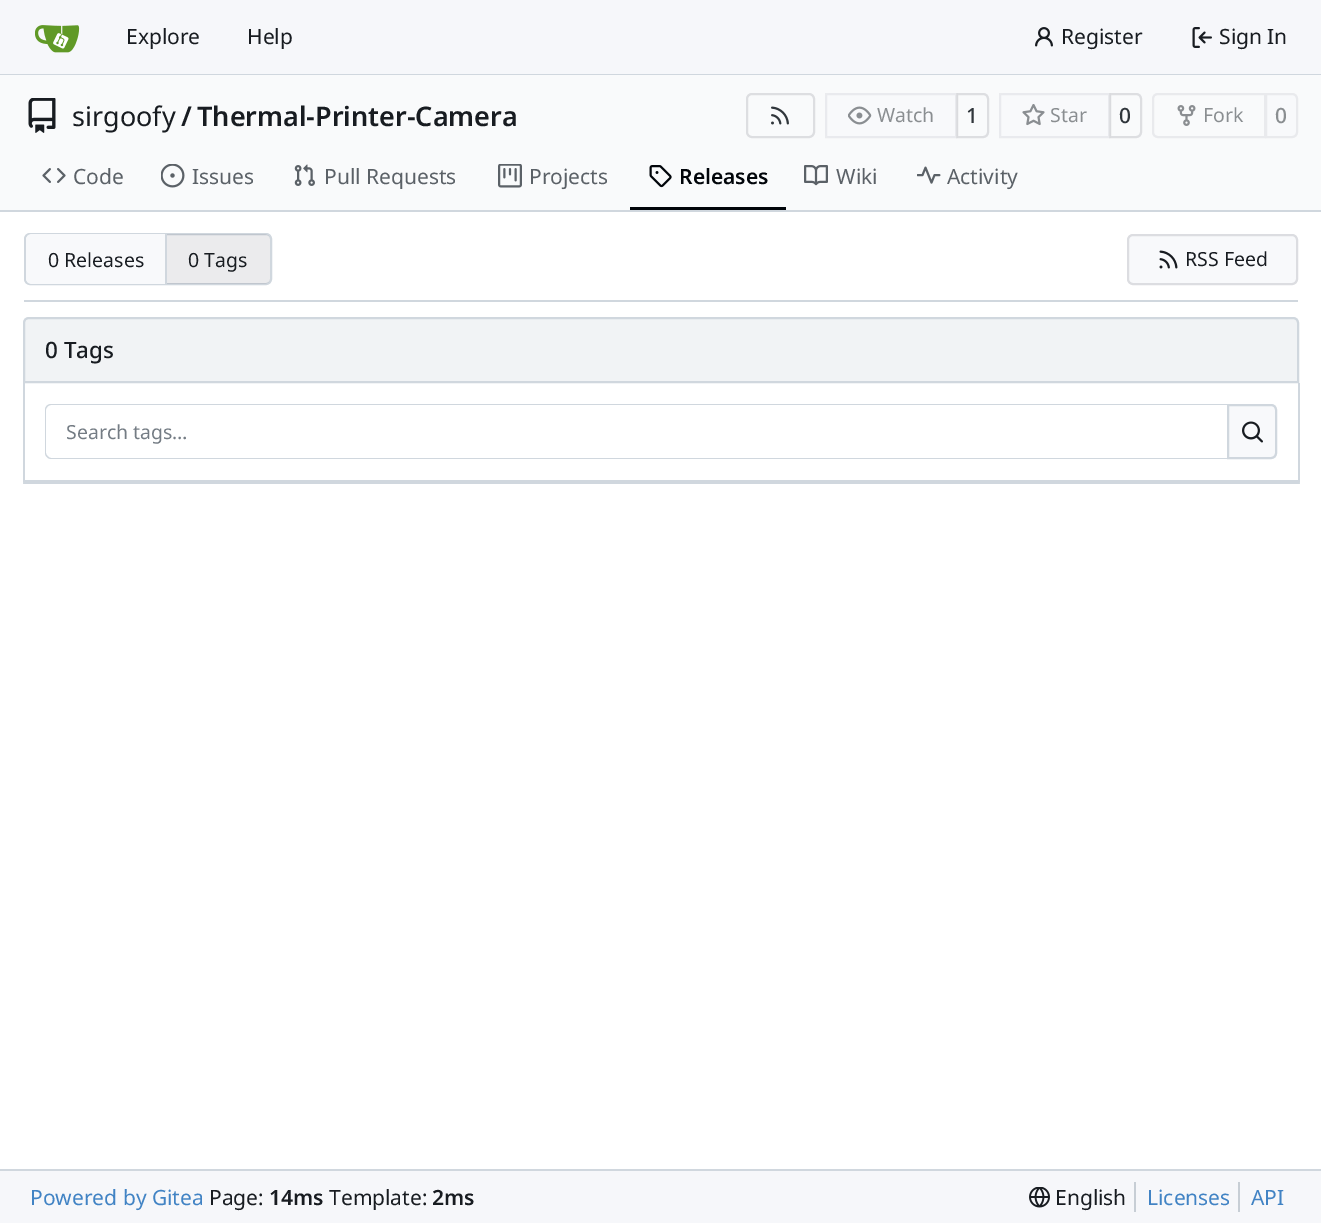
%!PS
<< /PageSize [1321 1223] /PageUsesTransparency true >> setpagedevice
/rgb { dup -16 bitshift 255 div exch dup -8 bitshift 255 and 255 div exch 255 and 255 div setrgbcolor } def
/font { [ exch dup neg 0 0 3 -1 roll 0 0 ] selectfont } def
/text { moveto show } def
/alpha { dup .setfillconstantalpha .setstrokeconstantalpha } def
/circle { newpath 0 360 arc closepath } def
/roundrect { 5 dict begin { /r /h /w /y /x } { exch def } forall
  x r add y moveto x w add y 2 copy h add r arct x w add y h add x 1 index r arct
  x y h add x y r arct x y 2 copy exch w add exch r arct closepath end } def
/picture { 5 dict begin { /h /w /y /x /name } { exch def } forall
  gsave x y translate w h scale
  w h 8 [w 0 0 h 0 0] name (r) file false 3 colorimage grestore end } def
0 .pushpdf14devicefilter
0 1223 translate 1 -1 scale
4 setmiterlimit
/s1 { /NotoSans-Regular 21 font 16#181C21 rgb } def
/s2 { /NotoSans-Regular 27 font 16#181C21 rgb } def
/s3 { /NotoSans-SemiBold 27 font 16#181C21 rgb } def
/s4 { /NotoSans-Regular 19.5 font 16#8A8E91 rgb } def
/s5 { /NotoSans-Medium 21 font 16#30363B rgb } def
/s6 { /NotoSans-Medium 21 font 16#8A8E91 rgb } def
/s7 { /NotoSans-Regular 21 font 16#5B6167 rgb } def
/s8 { /NotoSans-SemiBold 21 font 16#01050A rgb } def
/s9 { /NotoSans-Regular 19.5 font 16#181C21 rgb } def
/s10 { /NotoSans-Medium 22.5 font 16#181C21 rgb } def
/s11 { /NotoSans-Regular 19.5 font 16#747C84 rgb } def
/s12 { /NotoSans-Regular 21 font 16#4183C4 rgb } def
/s13 { /NotoSans-SemiBold 21 font 16#181C21 rgb } def
16#FFFFFF rgb
0 0 1321 1223 rectfill
16#F6F7FA rgb
0 0 1321 74 rectfill
16#D0D7DE rgb
0 74 1321 1 rectfill
(pic1.raw) 35 25 45 28 picture
s1
(Explore) 126 44 text
(Help) 247 44 text
(pic2.raw) 1035 27 18 20 picture
(Register) 1061 44 text
(pic3.raw) 1192 27 20 21 picture
(Sign In) 1219 44 text
16#F9FAFB rgb
0 75 1321 135 rectfill
(pic4.raw) 28 98 28 35 picture
s2
(sirgoofy) 72 126 text
s3
(/) 181 126 text
(Thermal-Printer-Camera) 197 126 text
16#DDDEE1 rgb
2 setlinewidth
747 94 67 43 5 roundrect stroke
(pic5.raw) 771 106 18 19 picture
957 94 moveto 983 94 lineto 986 94 988 96 988 99 curveto 988 132 lineto 988 135 986 137 983 137 curveto 957 137 lineto closepath stroke
0.55 alpha
16#F8F9FB rgb
831 93 moveto 957 93 lineto 957 138 lineto 831 138 lineto 827.5 138 825 135.5 825 132 curveto 825 99 lineto 825 95.5 827.5 93 831 93 curveto closepath fill
0.06 alpha
16#000017 rgb
826 94 130 43 rectstroke
1 alpha
(pic6.raw) 848 106 24 19 picture
s4
(Watch) 877 122 text
s5
(1) 966 123 text
16#DDDEE1 rgb
1110 94 moveto 1136 94 lineto 1139 94 1141 96 1141 99 curveto 1141 132 lineto 1141 135 1139 137 1136 137 curveto 1110 137 lineto closepath stroke
0.55 alpha
16#F8F9FB rgb
1005 93 moveto 1110 93 lineto 1110 138 lineto 1005 138 lineto 1001.5 138 999 135.5 999 132 curveto 999 99 lineto 999 95.5 1001.5 93 1005 93 curveto closepath fill
0.06 alpha
16#000017 rgb
1000 94 109 43 rectstroke
1 alpha
(pic7.raw) 1022 104 23 22 picture
s4
(Star) 1050 122 text
s5
(0) 1119 123 text
16#E9EAED rgb
1158 94 moveto 1265 94 lineto 1265 137 lineto 1158 137 lineto 1155 137 1153 135 1153 132 curveto 1153 99 lineto 1153 96 1155 94 1158 94 curveto closepath stroke
(pic8.raw) 1177 105 19 21 picture
s4
(Fork) 1203 122 text
16#F8F9FB rgb
1266 94 moveto 1292 94 lineto 1295 94 1297 96 1297 99 curveto 1297 132 lineto 1297 135 1295 137 1292 137 curveto 1266 137 lineto closepath gsave fill grestore
16#E9EAED rgb
stroke
s6
(0) 1275 123 text
(pic9.raw) 42 168 24 15 picture
s7
(Code) 73 184 text
(pic10.raw) 161 164 24 24 picture
(Issues) 192 184 text
(pic11.raw) 294 164 21 22 picture
(Pull Requests) 324 184 text
(pic12.raw) 498 164 24 24 picture
(Projects) 529 184 text
16#01050A rgb
630 207 156 3 rectfill
(pic13.raw) 649 165 23 23 picture
s8
(Releases) 679 184 text
(pic14.raw) 804 165 24 21 picture
s7
(Wiki) 836 184 text
(pic15.raw) 917 166 24 18 picture
(Activity) 947 184 text
16#D0D7DE rgb
0 210 1321 2 rectfill
25 234 246 50 5 roundrect stroke
16#F8F9FB rgb
32 234 moveto 167 234 lineto 167 284 lineto 32 284 lineto 28.5 284 26 281.5 26 278 curveto 26 240 lineto 26 236.5 28.5 234 32 234 curveto closepath fill
s9
(0 Releases) 48 267 text
16#D0D7DE rgb
165 234 2 50 rectfill
0.08 alpha
16#000017 rgb
167 234 moveto 264 234 lineto 267.5 234 270 236.5 270 240 curveto 270 278 lineto 270 281.5 267.5 284 264 284 curveto 167 284 lineto closepath fill
1 alpha
s9
(0 Tags) 188 267 text
16#F8F9FB rgb
1128 235 169 49 5 roundrect gsave fill grestore
16#DCDDE1 rgb
stroke
(pic16.raw) 1159 250 19 19 picture
s9
(RSS Feed) 1185 266 text
16#D0D7DE rgb
24 300 1274 2 rectfill
16#F1F3F5 rgb
29 318 moveto 1293 318 lineto 1296 318 1298 320 1298 323 curveto 1298 382 lineto 24 382 lineto 24 323 lineto 24 320 26 318 29 318 curveto closepath gsave fill grestore
16#D0D7DE rgb
stroke
s10
(0 Tags) 45 358 text
16#D0D7DE rgb
1298 383 2 99 rectfill
23 480 1276 2 rectfill
23 383 2 99 rectfill
51 404 moveto 1227 404 lineto 1227 459 lineto 51 459 lineto 48 459 45 456 45 453 curveto 45 410 lineto 45 406 48 404 51 404 curveto closepath 51 405 moveto 1227 405 lineto 1227 458 lineto 51 458 lineto 49 458 46 455 46 453 curveto 46 410 lineto 46 407 49 405 51 405 curveto closepath eofill
s11
(Search tags…) 66 439 text
16#F8F9FB rgb
1228 405 moveto 1271 405 lineto 1274 405 1276 407 1276 410 curveto 1276 453 lineto 1276 456 1274 458 1271 458 curveto 1228 458 lineto closepath gsave fill grestore
16#D0D7DE rgb
stroke
(pic17.raw) 1242 421 21 22 picture
1299 483 1 circle fill
24 482 1275 2 rectfill
24 483 1 circle fill
16#F6F7FA rgb
0 1171 1321 52 rectfill
16#D0D7DE rgb
0 1169 1321 2 rectfill
s12
(Powered by Gitea) 30 1205 text
s1
(Page:) 209 1205 text
s13
(14ms) 269 1205 text
s1
(Template:) 329 1205 text
s13
(2ms) 432 1205 text
(pic18.raw) 1029 1187 21 21 picture
s1
(English) 1055 1205 text
16#C7CED5 rgb
1134 1182 2 30 rectfill
s12
(Licenses) 1147 1205 text
16#C7CED5 rgb
1238 1182 2 30 rectfill
s12
(API) 1251 1205 text
.poppdf14devicefilter showpage
